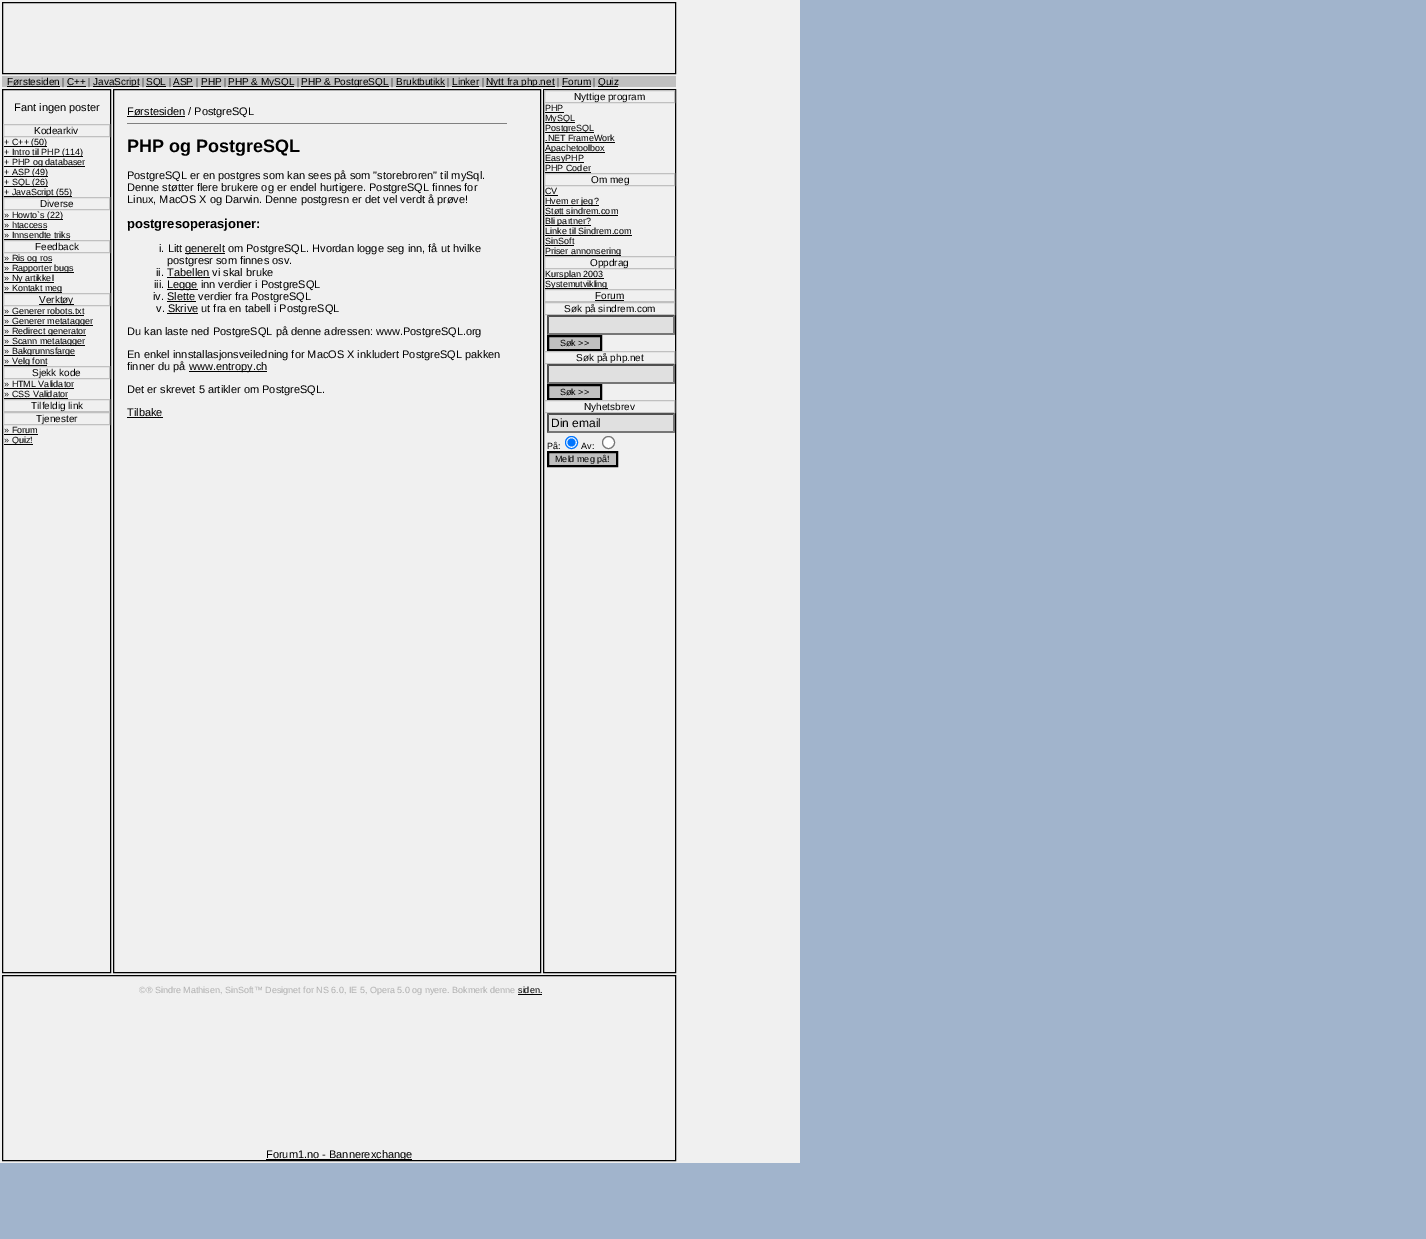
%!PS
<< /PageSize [1426 1239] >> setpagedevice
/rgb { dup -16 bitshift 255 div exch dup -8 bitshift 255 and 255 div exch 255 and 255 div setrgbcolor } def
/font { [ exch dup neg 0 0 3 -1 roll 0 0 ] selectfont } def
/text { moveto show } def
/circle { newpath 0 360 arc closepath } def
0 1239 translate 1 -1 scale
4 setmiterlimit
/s1 { /LiberationSans-Regular 10 font 16#000000 rgb } def
/s2 { /LiberationSerif-Regular 10 font 16#000000 rgb } def
/s3 { /LiberationSans-Regular 11 font 16#000000 rgb } def
/s4 { /LiberationSans-Regular 9 font 16#000000 rgb } def
/s5 { /LiberationSans-Bold 18 font 16#000000 rgb } def
/s6 { /LiberationSans-Bold 13 font 16#000000 rgb } def
/s7 { /LiberationSans-Regular 12 font 16#000000 rgb } def
/s8 { /LiberationSans-Regular 9 font 16#B0B0B0 rgb } def
16#A1B4CC rgb
0 0 1426 1239 rectfill
16#F0F0F0 rgb
0 0 800 1163 rectfill
16#000000 rgb
2.5 2.5 673 71 rectstroke
16#C0C0C0 rgb
2 76 674 11 rectfill
s1
(Førstesiden) 7 85 text
7 86 53 1 rectfill
s2
(|) 62 85 text
s1
(C++) 67 85 text
67 86 19 1 rectfill
s2
(|) 88 85 text
93 86 46 1 rectfill
s1
(JavaScript) 93 85 text
s2
(|) 142 85 text
146 86 20 1 rectfill
s1
(SQL) 146 85 text
s2
(|) 169 85 text
173 86 20 1 rectfill
s1
(ASP) 173 85 text
s2
(|) 196 85 text
201 86 20 1 rectfill
s1
(PHP) 201 85 text
s2
(|) 224 85 text
228 86 66 1 rectfill
s1
(PHP & MySQL) 228 85 text
s2
(|) 297 85 text
301 86 88 1 rectfill
s1
(PHP & PostgreSQL) 301 85 text
s2
(|) 391 85 text
396 86 49 1 rectfill
s1
(Bruktbutikk) 396 85 text
s2
(|) 447 85 text
452 86 27 1 rectfill
s1
(Linker) 452 85 text
s2
(|) 482 85 text
486 86 69 1 rectfill
s1
(Nytt fra php.net) 486 85 text
s2
(|) 557 85 text
s1
(Forum) 562 85 text
562 86 29 1 rectfill
s2
(|) 593 85 text
598 86 20 1 rectfill
s1
(Quiz) 598 85 text
2.5 89.5 108 883 rectstroke
s3
(Fant ingen poster) 14 111 text
16#C0C0C0 rgb
3.5 124.5 106 12 rectstroke
s1
(Kodearkiv) 34 134 text
4 146 43 1 rectfill
s4
(+ C++ \(50\)) 4 145 text
4 156 79 1 rectfill
(+ Intro til PHP \(114\)) 4 155 text
4 166 81 1 rectfill
(+ PHP og databaser) 4 165 text
4 176 44 1 rectfill
(+ ASP \(49\)) 4 175 text
4 186 44 1 rectfill
(+ SQL \(26\)) 4 185 text
4 196 68 1 rectfill
(+ JavaScript \(55\)) 4 195 text
16#C0C0C0 rgb
3.5 197.5 106 12 rectstroke
s1
(Diverse) 40 207 text
4 219 59 1 rectfill
s4
(» Howto`s \(22\)) 4 218 text
(» htaccess) 4 228 text
4 229 43 1 rectfill
(» Innsendte triks) 4 238 text
4 239 66 1 rectfill
16#C0C0C0 rgb
3.5 240.5 106 12 rectstroke
s1
(Feedback) 35 250 text
4 262 48 1 rectfill
s4
(» Ris og ros) 4 261 text
4 272 70 1 rectfill
(» Rapporter bugs) 4 271 text
4 282 50 1 rectfill
(» Ny artikkel) 4 281 text
4 292 58 1 rectfill
(» Kontakt meg) 4 291 text
16#C0C0C0 rgb
3.5 293.5 106 12 rectstroke
16#000000 rgb
39 304 35 1 rectfill
s1
(Verktøy) 39 303 text
s4
(» Generer robots.txt) 4 314 text
4 315 80 1 rectfill
4 325 89 1 rectfill
(» Generer metatagger) 4 324 text
4 335 82 1 rectfill
(» Redirect generator) 4 334 text
4 345 81 1 rectfill
(» Scann metatagger) 4 344 text
4 355 71 1 rectfill
(» Bakgrunnsfarge) 4 354 text
4 365 43 1 rectfill
(» Velg font) 4 364 text
16#C0C0C0 rgb
3.5 366.5 106 12 rectstroke
s1
(Sjekk kode) 32 376 text
s4
(» HTML Validator) 4 387 text
4 388 70 1 rectfill
(» CSS Validator) 4 397 text
4 398 64 1 rectfill
16#C0C0C0 rgb
3.5 399.5 106 12 rectstroke
s1
(Tilfeldig link) 31 409 text
16#C0C0C0 rgb
3.5 412.5 106 12 rectstroke
s1
(Tjenester) 36 422 text
s4
(» Forum) 4 433 text
4 434 34 1 rectfill
4 444 29 1 rectfill
(» Quiz!) 4 443 text
113.5 89.5 427 883 rectstroke
127 116 58 1 rectfill
s3
(Førstesiden / PostgreSQL) 127 115 text
16#808080 rgb
127 123 380 1 rectfill
s5
(PHP og PostgreSQL) 127 152 text
s3
(PostgreSQL er en postgres som kan sees på som "storebroren" til mySql.) 127 179 text
(Denne støtter flere brukere og er endel hurtigere. PostgreSQL finnes for) 127 191 text
(Linux, MacOS X og Darwin. Denne postgresn er det vel verdt å prøve!) 127 203 text
s6
(postgresoperasjoner:) 127 228 text
s3
(i. Litt) 159 252 text
185 253 40 1 rectfill
(generelt om PostgreSQL. Hvordan logge seg inn, få ut hvilke) 185 252 text
(postgresr som finnes osv.) 167 264 text
(ii. Tabellen vi skal bruke) 156 276 text
167 277 43 1 rectfill
(iii.) 154 288 text
167 289 31 1 rectfill
(Legge inn verdier i PostgreSQL) 167 288 text
(iv. Slette verdier fra PostgreSQL) 153 300 text
167 301 29 1 rectfill
(v. Skrive ut fra en tabell i PostgreSQL) 156 312 text
167 313 31 1 rectfill
(Du kan laste ned PostgreSQL på denne adressen: www.PostgreSQL.org) 127 335 text
(En enkel innstallasjonsveiledning for MacOS X inkludert PostgreSQL pakken) 127 358 text
(finner du på) 127 370 text
189 371 78 1 rectfill
(www.entropy.ch) 189 370 text
(Det er skrevet 5 artikler om PostgreSQL.) 127 393 text
(Tilbake) 127 416 text
127 417 36 1 rectfill
543.5 89.5 132 883 rectstroke
16#C0C0C0 rgb
544.5 90.5 130 12 rectstroke
s1
(Nyttige program) 574 100 text
s4
(PHP) 545 111 text
545 112 19 1 rectfill
545 122 30 1 rectfill
(MySQL) 545 121 text
545 132 49 1 rectfill
(PostgreSQL) 545 131 text
(.NET FrameWork) 545 141 text
545 142 70 1 rectfill
545 152 60 1 rectfill
(Apachetoolbox) 545 151 text
545 162 39 1 rectfill
(EasyPHP) 545 161 text
(PHP Coder) 545 171 text
545 172 46 1 rectfill
16#C0C0C0 rgb
544.5 173.5 130 12 rectstroke
s1
(Om meg) 591 183 text
s4
(CV) 545 194 text
545 195 13 1 rectfill
545 205 54 1 rectfill
(Hvem er jeg?) 545 204 text
(Støtt sindrem.com) 545 214 text
545 215 73 1 rectfill
545 225 46 1 rectfill
(Bli partner?) 545 224 text
(Linke til Sindrem.com) 545 234 text
545 235 87 1 rectfill
(SinSoft) 545 244 text
545 245 29 1 rectfill
545 255 76 1 rectfill
(Priser annonsering) 545 254 text
16#C0C0C0 rgb
544.5 256.5 130 12 rectstroke
s1
(Oppdrag) 590 266 text
545 278 59 1 rectfill
s4
(Kursplan 2003) 545 277 text
545 288 63 1 rectfill
(Systemutvikling) 545 287 text
16#C0C0C0 rgb
544.5 289.5 130 12 rectstroke
s1
(Forum) 595 299 text
595 300 29 1 rectfill
16#C0C0C0 rgb
544.5 302.5 130 12 rectstroke
s1
(Søk på sindrem.com) 564 312 text
16#E0E0E0 rgb
547 315 128 20 rectfill
16#4F4F4F rgb
547 315 moveto 675 315 lineto 673 317 lineto 549 317 lineto closepath fill
16#767676 rgb
675 315 moveto 675 335 lineto 673 333 lineto 673 317 lineto closepath fill
675 335 moveto 547 335 lineto 549 333 lineto 673 333 lineto closepath fill
16#4F4F4F rgb
547 335 moveto 547 315 lineto 549 317 lineto 549 333 lineto closepath fill
16#C0C0C0 rgb
548 336 moveto 601 336 lineto 601 350 lineto 548 350 lineto closepath gsave fill grestore
16#000000 rgb
2 setlinewidth
stroke
s4
(Søk >>) 560 346 text
16#C0C0C0 rgb
1 setlinewidth
544.5 351.5 130 12 rectstroke
s1
(Søk på php.net) 576 361 text
16#E0E0E0 rgb
547 364 128 20 rectfill
16#4F4F4F rgb
547 364 moveto 675 364 lineto 673 366 lineto 549 366 lineto closepath fill
16#767676 rgb
675 364 moveto 675 384 lineto 673 382 lineto 673 366 lineto closepath fill
675 384 moveto 547 384 lineto 549 382 lineto 673 382 lineto closepath fill
16#4F4F4F rgb
547 384 moveto 547 364 lineto 549 366 lineto 549 382 lineto closepath fill
16#C0C0C0 rgb
548 385 moveto 601 385 lineto 601 399 lineto 548 399 lineto closepath gsave fill grestore
16#000000 rgb
2 setlinewidth
stroke
s4
(Søk >>) 560 395 text
16#C0C0C0 rgb
1 setlinewidth
544.5 400.5 130 12 rectstroke
s1
(Nyhetsbrev) 584 410 text
16#E0E0E0 rgb
547 413 128 20 rectfill
16#4F4F4F rgb
547 413 moveto 675 413 lineto 673 415 lineto 549 415 lineto closepath fill
16#767676 rgb
675 413 moveto 675 433 lineto 673 431 lineto 673 415 lineto closepath fill
675 433 moveto 547 433 lineto 549 431 lineto 673 431 lineto closepath fill
16#4F4F4F rgb
547 433 moveto 547 413 lineto 549 415 lineto 549 431 lineto closepath fill
s7
(Din email) 551 427 text
s4
(På:) 547 449 text
16#FFFFFF rgb
571.5 442.5 6 circle gsave fill grestore
16#0075FF rgb
stroke
571.5 442.5 4 circle fill
s4
(Av:) 581 449 text
16#FFFFFF rgb
608.5 442.5 6 circle gsave fill grestore
16#767676 rgb
stroke
16#C0C0C0 rgb
548 452 moveto 617 452 lineto 617 466 lineto 548 466 lineto closepath gsave fill grestore
16#000000 rgb
2 setlinewidth
stroke
(Meld meg på!) 555 462 text
1 setlinewidth
2.5 975.5 673 185 rectstroke
s8
(©® Sindre Mathisen, SinSoft™ Designet for NS 6.0, IE 5, Opera 5.0 og nyere. Bokmerk denne) 139 993 text
s4
(siden.) 518 993 text
518 994 24 1 rectfill
266 1159 146 1 rectfill
s3
(Forum1.no - Bannerexchange) 266 1158 text
showpage
